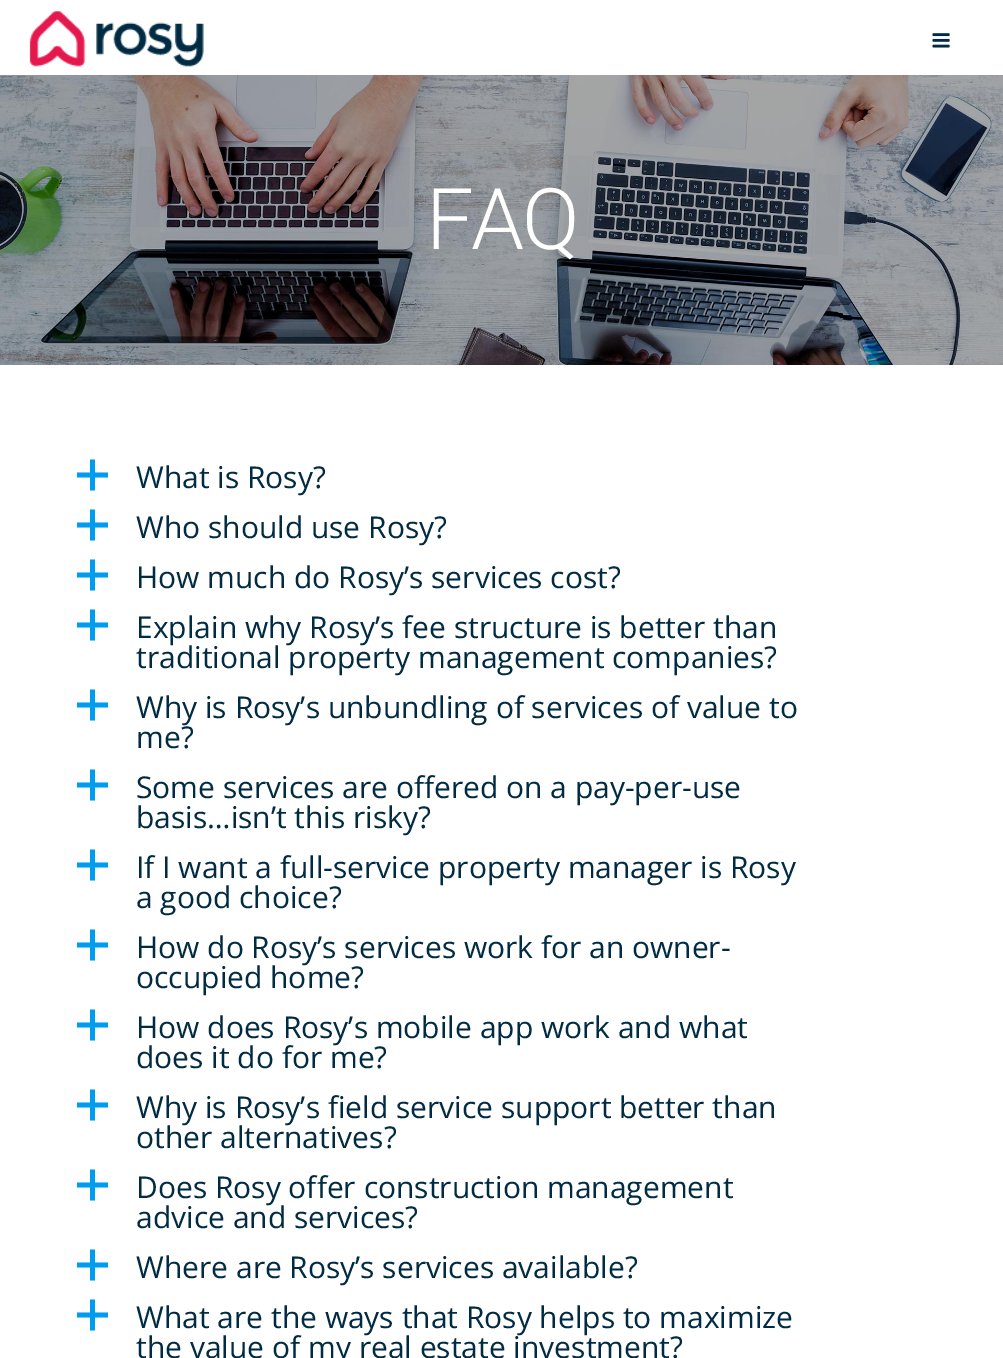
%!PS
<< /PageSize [1003 1358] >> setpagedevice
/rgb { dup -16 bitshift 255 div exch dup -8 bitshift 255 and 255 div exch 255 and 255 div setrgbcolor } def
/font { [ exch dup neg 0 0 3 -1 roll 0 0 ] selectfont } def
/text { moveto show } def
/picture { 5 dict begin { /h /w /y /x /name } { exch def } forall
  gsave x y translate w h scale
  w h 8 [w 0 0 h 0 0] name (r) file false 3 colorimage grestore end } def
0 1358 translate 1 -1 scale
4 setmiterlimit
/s1 { /OpenSans-Regular 30 font 16#002B42 rgb } def
16#FFFFFF rgb
0 0 1003 1358 rectfill
(pic1.raw) 29 11 175 56 picture
(pic2.raw) 932 33 18 15 picture
(pic3.raw) 0 75 1003 290 picture
/Roboto-Light 85 font
426 249 moveto -2.5 0 (FAQ) ashow
16#009CF0 rgb
90 459.5 moveto 95 459.5 lineto 95 490.5 lineto 90 490.5 lineto closepath 77 472.5 moveto 108 472.5 lineto 108 477.5 lineto 77 477.5 lineto closepath fill
s1
(What is Rosy?) 136 488 text
16#009CF0 rgb
90 509.5 moveto 95 509.5 lineto 95 540.5 lineto 90 540.5 lineto closepath 77 522.5 moveto 108 522.5 lineto 108 527.5 lineto 77 527.5 lineto closepath fill
s1
(Who should use Rosy?) 136 538 text
16#009CF0 rgb
90 559.5 moveto 95 559.5 lineto 95 590.5 lineto 90 590.5 lineto closepath 77 572.5 moveto 108 572.5 lineto 108 577.5 lineto 77 577.5 lineto closepath fill
s1
(How much do Rosy’s services cost?) 136 588 text
16#009CF0 rgb
90 609.5 moveto 95 609.5 lineto 95 640.5 lineto 90 640.5 lineto closepath 77 622.5 moveto 108 622.5 lineto 108 627.5 lineto 77 627.5 lineto closepath fill
s1
(Explain why Rosy’s fee structure is better than) 136 638 text
(traditional property management companies?) 136 668 text
16#009CF0 rgb
90 689.5 moveto 95 689.5 lineto 95 720.5 lineto 90 720.5 lineto closepath 77 702.5 moveto 108 702.5 lineto 108 707.5 lineto 77 707.5 lineto closepath fill
s1
(Why is Rosy’s unbundling of services of value to) 136 718 text
(me?) 136 748 text
16#009CF0 rgb
90 769.5 moveto 95 769.5 lineto 95 800.5 lineto 90 800.5 lineto closepath 77 782.5 moveto 108 782.5 lineto 108 787.5 lineto 77 787.5 lineto closepath fill
s1
(Some services are offered on a pay-per-use) 136 798 text
(basis…isn’t this risky?) 136 828 text
16#009CF0 rgb
90 849.5 moveto 95 849.5 lineto 95 880.5 lineto 90 880.5 lineto closepath 77 862.5 moveto 108 862.5 lineto 108 867.5 lineto 77 867.5 lineto closepath fill
s1
(If I want a full-service property manager is Rosy) 136 878 text
(a good choice?) 136 908 text
16#009CF0 rgb
90 929.5 moveto 95 929.5 lineto 95 960.5 lineto 90 960.5 lineto closepath 77 942.5 moveto 108 942.5 lineto 108 947.5 lineto 77 947.5 lineto closepath fill
s1
(How do Rosy’s services work for an owner-) 136 958 text
(occupied home?) 136 988 text
16#009CF0 rgb
90 1009.5 moveto 95 1009.5 lineto 95 1040.5 lineto 90 1040.5 lineto closepath 77 1022.5 moveto 108 1022.5 lineto 108 1027.5 lineto 77 1027.5 lineto closepath fill
s1
(How does Rosy’s mobile app work and what) 136 1038 text
(does it do for me?) 136 1068 text
16#009CF0 rgb
90 1089.5 moveto 95 1089.5 lineto 95 1120.5 lineto 90 1120.5 lineto closepath 77 1102.5 moveto 108 1102.5 lineto 108 1107.5 lineto 77 1107.5 lineto closepath fill
s1
(Why is Rosy’s field service support better than) 136 1118 text
(other alternatives?) 136 1148 text
16#009CF0 rgb
90 1169.5 moveto 95 1169.5 lineto 95 1200.5 lineto 90 1200.5 lineto closepath 77 1182.5 moveto 108 1182.5 lineto 108 1187.5 lineto 77 1187.5 lineto closepath fill
s1
(Does Rosy offer construction management) 136 1198 text
(advice and services?) 136 1228 text
16#009CF0 rgb
90 1249.5 moveto 95 1249.5 lineto 95 1280.5 lineto 90 1280.5 lineto closepath 77 1262.5 moveto 108 1262.5 lineto 108 1267.5 lineto 77 1267.5 lineto closepath fill
s1
(Where are Rosy’s services available?) 136 1278 text
16#009CF0 rgb
90 1299.5 moveto 95 1299.5 lineto 95 1330.5 lineto 90 1330.5 lineto closepath 77 1312.5 moveto 108 1312.5 lineto 108 1317.5 lineto 77 1317.5 lineto closepath fill
s1
(What are the ways that Rosy helps to maximize) 136 1328 text
(the value of my real estate investment?) 136 1358 text
showpage
